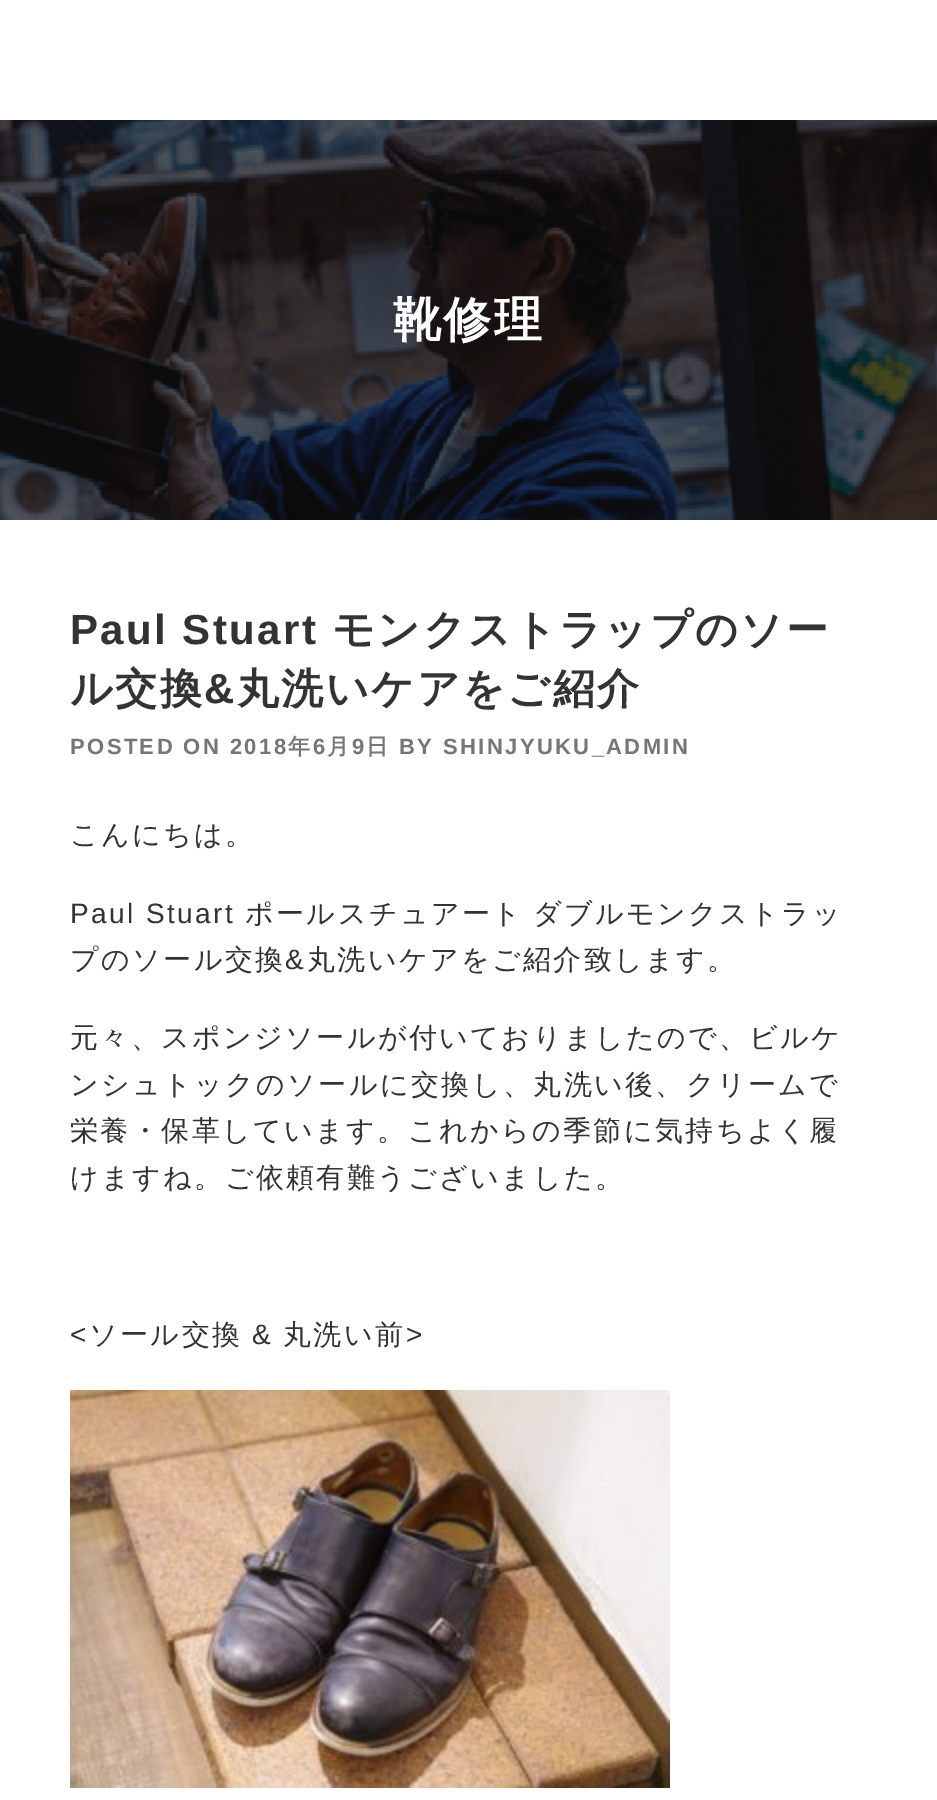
%!PS
<< /PageSize [937 1800] >> setpagedevice
/rgb { dup -16 bitshift 255 div exch dup -8 bitshift 255 and 255 div exch 255 and 255 div setrgbcolor } def
/font { [ exch dup neg 0 0 3 -1 roll 0 0 ] selectfont } def
/picture { 5 dict begin { /h /w /y /x /name } { exch def } forall
  gsave x y translate w h scale
  w h 8 [w 0 0 h 0 0] name (r) file false 3 colorimage grestore end } def
0 1800 translate 1 -1 scale
4 setmiterlimit
16#FFFFFF rgb
0 0 937 1800 rectfill
(pic1.raw) 0 120 937 400 picture
/WenQuanYiZenHei-Bold 48 font
393 336 moveto 2.4 0 (靴修理) ashow
/LiberationSans-Bold 42 font
16#333333 rgb
70 644 moveto 2.4 0 (Paul Stuart) ashow
/WenQuanYiZenHei-Bold 42 font
332 644 moveto 2.4 0 (モンクストラップのソー) ashow
70 703 moveto 2.4 0 (ル交換) ashow
/LiberationSans-Bold 42 font
204 703 moveto 2.4 0 (&) ashow
/WenQuanYiZenHei-Bold 42 font
237 703 moveto 2.4 0 (丸洗いケアをご紹介) ashow
/LiberationSans-Bold 22 font
16#767676 rgb
70 754 moveto 2.4 0 (POSTED ON 2018) ashow
/WenQuanYiZenHei-Bold 22 font
288 754 moveto 2.4 0 (年) ashow
/LiberationSans-Bold 22 font
313 754 moveto 2.4 0 (6) ashow
/WenQuanYiZenHei-Bold 22 font
327 754 moveto 2.4 0 (月) ashow
/LiberationSans-Bold 22 font
352 754 moveto 2.4 0 (9) ashow
/WenQuanYiZenHei-Bold 22 font
366 754 moveto 2.4 0 (日) ashow
/LiberationSans-Bold 22 font
399 754 moveto 2.4 0 (BY SHINJYUKU_ADMIN) ashow
/WenQuanYiZenHei-Medium 28 font
16#333333 rgb
70 844 moveto 2.4 0 (こんにちは。) ashow
/LiberationSans-Regular 28 font
70 923 moveto 2.4 0 (Paul Stuart) ashow
/WenQuanYiZenHei-Medium 28 font
245 923 moveto 2.4 0 (ポールスチュアート) ashow
533 923 moveto 2.4 0 (ダブルモンクストラッ) ashow
70 969 moveto 2.4 0 (プのソール交換) ashow
/LiberationSans-Regular 28 font
285 969 moveto 2.4 0 (&) ashow
/WenQuanYiZenHei-Medium 28 font
307 969 moveto 2.4 0 (丸洗いケアをご紹介致します。) ashow
70 1047 moveto 2.4 0 (元々、スポンジソールが付いておりましたので、ビルケ) ashow
70 1094 moveto 2.4 0 (ンシュトックのソールに交換し、丸洗い後、クリームで) ashow
70 1140 moveto 2.4 0 (栄養・保革しています。これからの季節に気持ちよく履) ashow
70 1187 moveto 2.4 0 (けますね。ご依頼有難うございました。) ashow
/LiberationSans-Regular 28 font
70 1344 moveto 2.4 0 (<) ashow
/WenQuanYiZenHei-Medium 28 font
89 1344 moveto 2.4 0 (ソール交換) ashow
/LiberationSans-Regular 28 font
252 1344 moveto 2.4 0 (&) ashow
/WenQuanYiZenHei-Medium 28 font
283 1344 moveto 2.4 0 (丸洗い前) ashow
/LiberationSans-Regular 28 font
406 1344 moveto 2.4 0 (>) ashow
(pic2.raw) 70 1390 600 398 picture
showpage
